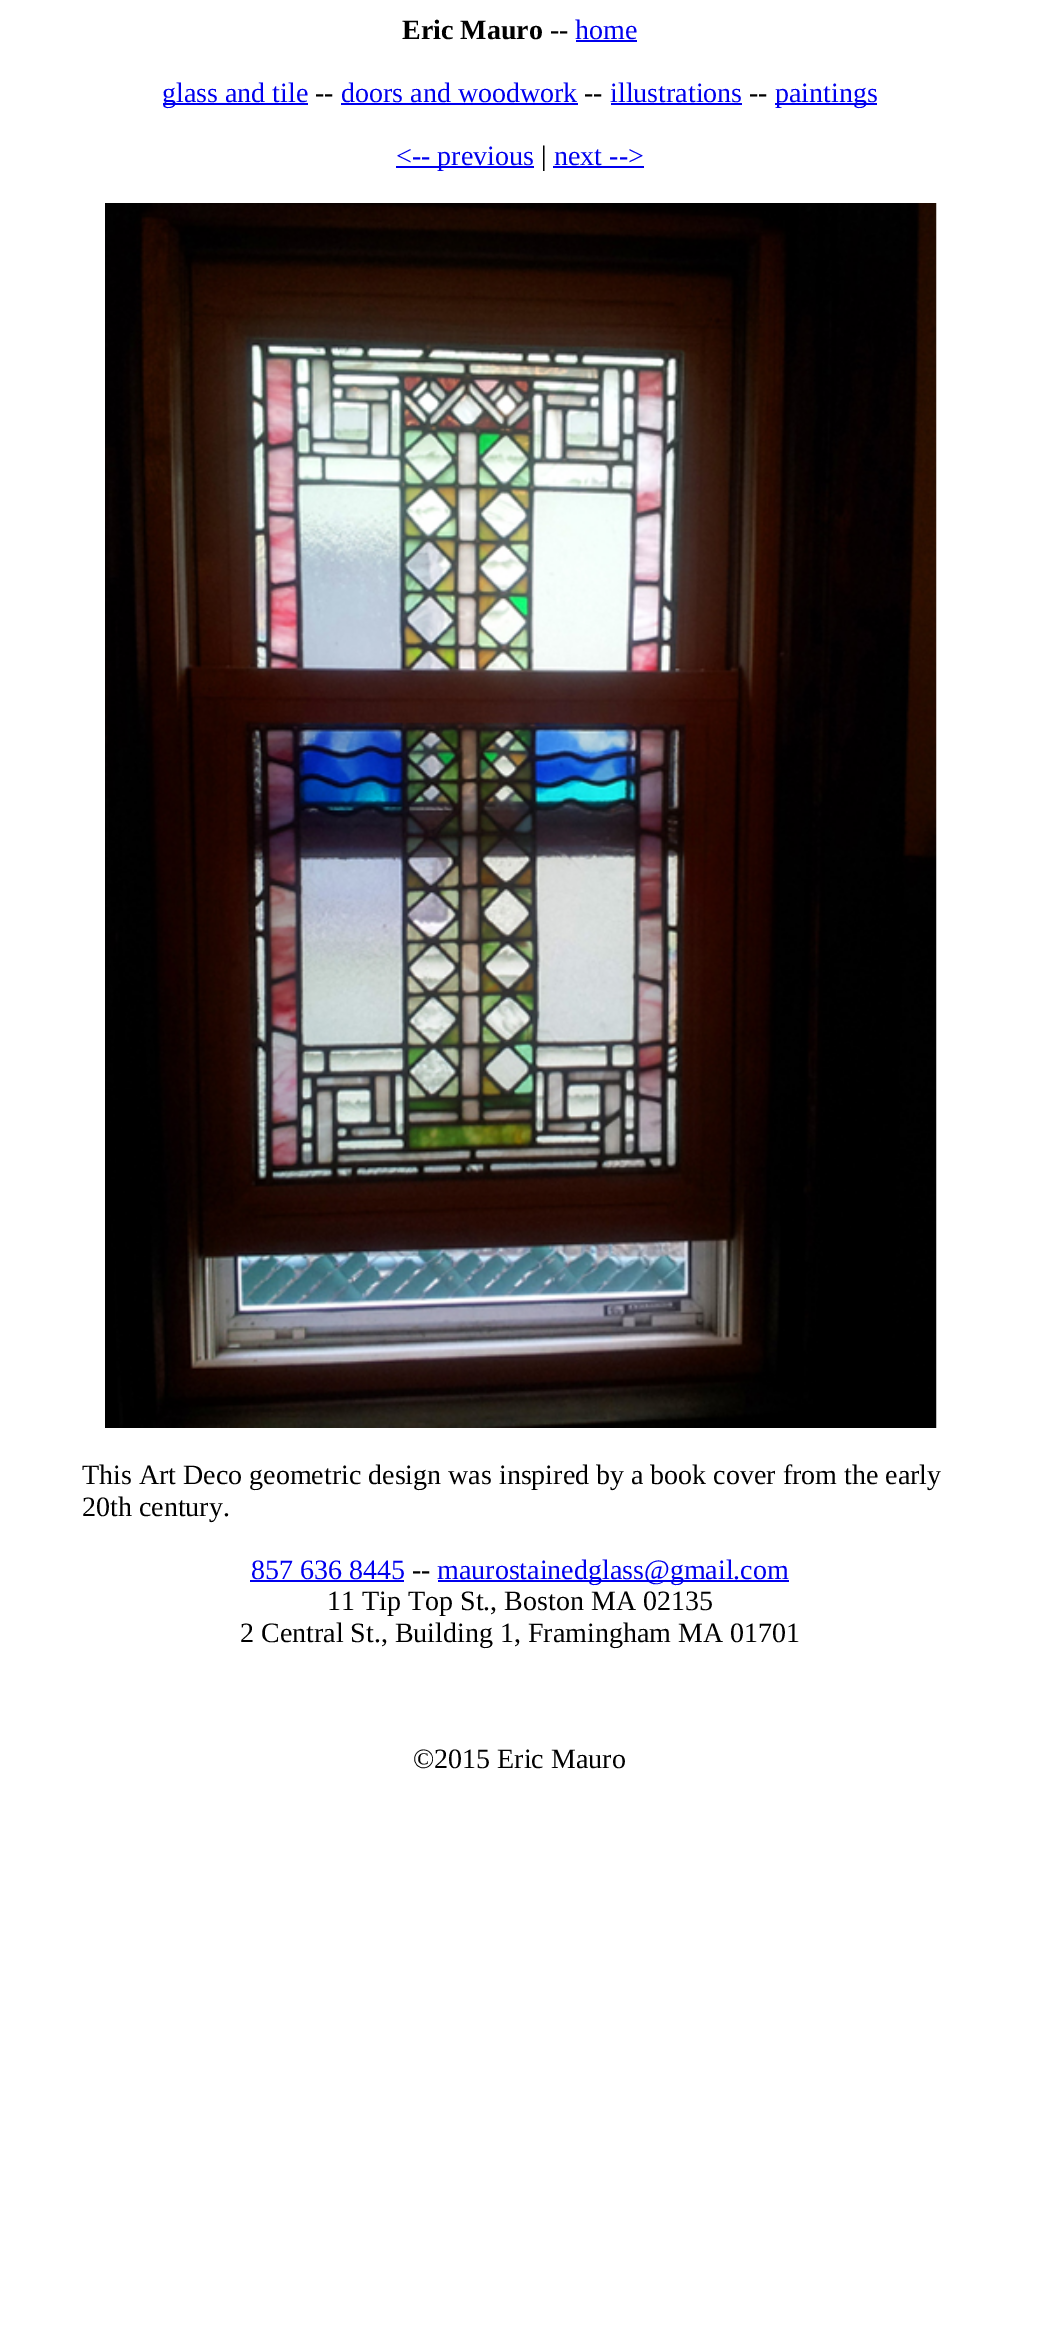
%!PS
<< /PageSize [1038 2349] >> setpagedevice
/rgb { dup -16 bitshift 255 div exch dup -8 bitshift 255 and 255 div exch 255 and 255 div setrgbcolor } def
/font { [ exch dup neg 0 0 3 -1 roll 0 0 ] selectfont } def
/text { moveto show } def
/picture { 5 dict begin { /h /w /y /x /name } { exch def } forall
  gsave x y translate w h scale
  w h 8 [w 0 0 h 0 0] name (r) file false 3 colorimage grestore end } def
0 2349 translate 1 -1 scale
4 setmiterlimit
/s1 { /LiberationSerif-Bold 28 font 16#000000 rgb } def
/s2 { /LiberationSerif-Regular 28 font 16#000000 rgb } def
/s3 { /LiberationSerif-Regular 28 font 16#0000EE rgb } def
16#FFFFFF rgb
0 0 1038 2349 rectfill
s1
(Eric Mauro) 402 39 text
s2
(--) 550 39 text
s3
(home) 575 39 text
576 40 61 2 rectfill
163 103 145 2 rectfill
(glass and tile) 162 102 text
s2
(--) 315 102 text
s3
(doors and woodwork) 341 102 text
341 103 237 2 rectfill
s2
(--) 584 102 text
s3
(illustrations) 610 102 text
611 103 131 2 rectfill
s2
(--) 749 102 text
16#0000EE rgb
775 103 102 2 rectfill
(paintings) 775 102 text
396 166 138 2 rectfill
(<-- previous) 396 165 text
s2
(|) 541 165 text
s3
(next -->) 554 165 text
553 166 91 2 rectfill
(pic1.raw) 105 203 832 1225 picture
s2
(This Art Deco geometric design was inspired by a book cover from the early) 82 1484 text
(20th century.) 82 1516 text
s3
(857 636 8445) 251 1579 text
250 1580 154 2 rectfill
s2
(--) 412 1579 text
16#0000EE rgb
438 1580 351 2 rectfill
(maurostainedglass@gmail.com) 437 1579 text
s2
(11 Tip Top St., Boston MA 02135) 327 1610 text
(2 Central St., Building 1, Framingham MA 01701) 240 1642 text
(©2015 Eric Mauro) 413 1768 text
showpage
